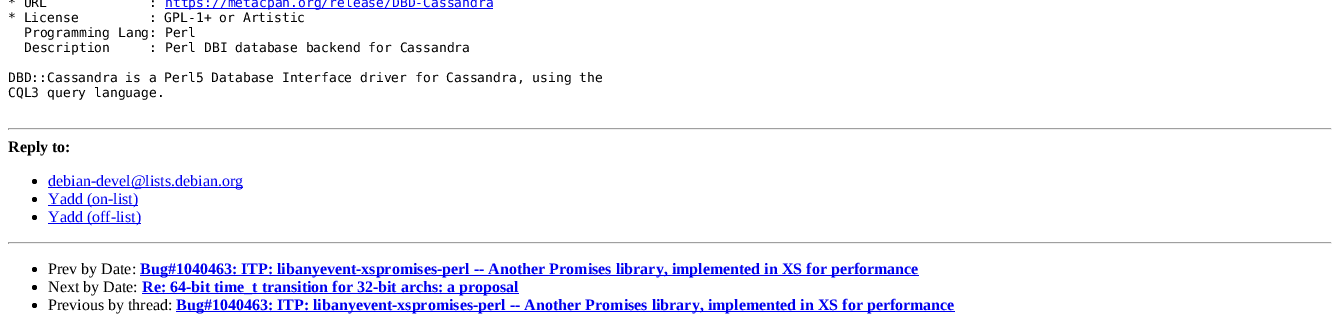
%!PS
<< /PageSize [1340 321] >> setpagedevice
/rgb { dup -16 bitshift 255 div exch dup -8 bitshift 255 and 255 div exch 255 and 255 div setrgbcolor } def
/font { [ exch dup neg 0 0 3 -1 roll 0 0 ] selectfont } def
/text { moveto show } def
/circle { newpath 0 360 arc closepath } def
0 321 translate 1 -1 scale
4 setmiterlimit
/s1 { /DejaVuSansMono-Regular 13 font 16#000000 rgb } def
/s2 { /DejaVuSansMono-Regular 13 font 16#0000EE rgb } def
/s3 { /LiberationSerif-Bold 16 font 16#000000 rgb } def
/s4 { /LiberationSerif-Regular 16 font 16#0000EE rgb } def
/s5 { /LiberationSerif-Regular 16 font 16#000000 rgb } def
/s6 { /LiberationSerif-Bold 16 font 16#0000EE rgb } def
16#FFFFFF rgb
0 0 1340 321 rectfill
s1
(* URL             :) 8 7 text
16#0000EE rgb
165 8 328 1 rectfill
(https://metacpan.org/release/DBD-Cassandra) 165 7 text
s1
(* License         : GPL-1+ or Artistic) 8 22 text
(Programming Lang: Perl) 24 37 text
(Description     : Perl DBI database backend for Cassandra) 24 52 text
(DBD::Cassandra is a Perl5 Database Interface driver for Cassandra, using the) 8 82 text
(CQL3 query language.) 8 97 text
16#9F9F9F rgb
8 128 1324 1 rectfill
16#EEEEEE rgb
1331 128 1 2 rectfill
8 129 1324 1 rectfill
16#9F9F9F rgb
8 128 1 2 rectfill
s3
(Reply to:) 8 152 text
34.5 181.5 2.5 circle fill
16#0000EE rgb
48 187 195 1 rectfill
s4
(debian-devel@lists.debian.org) 48 186 text
16#000000 rgb
34.5 199.5 2.5 circle fill
16#0000EE rgb
48 205 90 1 rectfill
(Yadd \(on-list\)) 48 204 text
16#000000 rgb
34.5 217.5 2.5 circle fill
16#0000EE rgb
48 223 93 1 rectfill
(Yadd \(off-list\)) 48 222 text
16#9F9F9F rgb
8 242 1324 1 rectfill
16#EEEEEE rgb
1331 242 1 2 rectfill
8 243 1324 1 rectfill
16#9F9F9F rgb
8 242 1 2 rectfill
16#000000 rgb
34.5 269.5 2.5 circle fill
(Prev by Date:) 48 274 text
16#0000EE rgb
140 275 779 1 rectfill
s6
(Bug#1040463: ITP: libanyevent-xspromises-perl -- Another Promises library, implemented in XS for performance) 140 274 text
16#000000 rgb
34.5 287.5 2.5 circle fill
s5
(Next by Date:) 48 292 text
16#0000EE rgb
142 293 377 1 rectfill
s6
(Re: 64-bit time_t transition for 32-bit archs: a proposal) 142 292 text
16#000000 rgb
34.5 305.5 2.5 circle fill
s5
(Previous by thread:) 48 310 text
16#0000EE rgb
176 311 779 1 rectfill
s6
(Bug#1040463: ITP: libanyevent-xspromises-perl -- Another Promises library, implemented in XS for performance) 176 310 text
showpage
